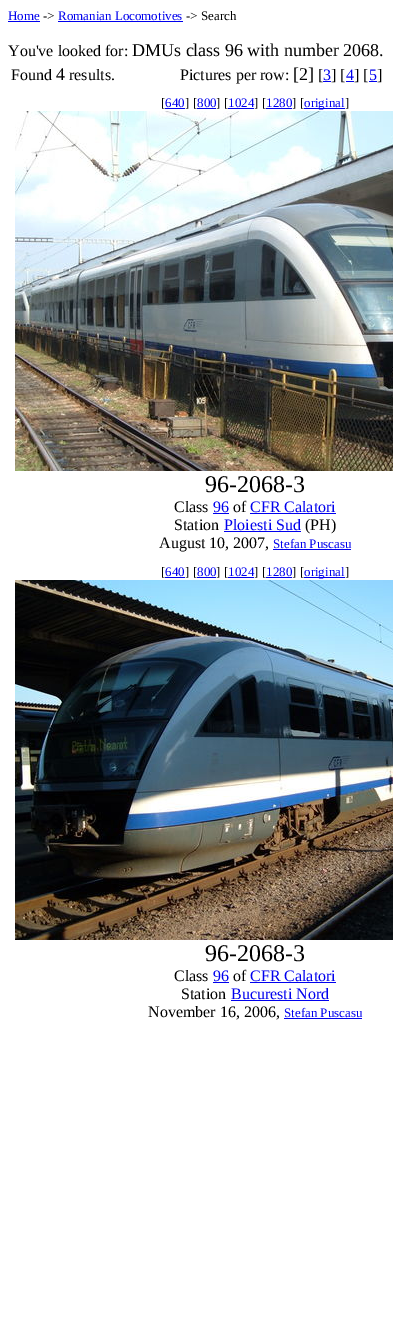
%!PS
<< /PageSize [393 1325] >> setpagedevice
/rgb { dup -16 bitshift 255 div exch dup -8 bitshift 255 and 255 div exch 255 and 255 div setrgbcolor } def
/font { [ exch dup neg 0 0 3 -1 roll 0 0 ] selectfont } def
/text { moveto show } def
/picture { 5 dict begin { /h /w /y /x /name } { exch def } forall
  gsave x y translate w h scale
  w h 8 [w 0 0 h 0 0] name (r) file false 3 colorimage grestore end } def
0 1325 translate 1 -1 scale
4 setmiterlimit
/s1 { /LiberationSerif-Regular 13 font 16#0000EE rgb } def
/s2 { /LiberationSerif-Regular 13 font 16#000000 rgb } def
/s3 { /LiberationSerif-Regular 16 font 16#000000 rgb } def
/s4 { /LiberationSerif-Regular 18 font 16#000000 rgb } def
/s5 { /LiberationSerif-Regular 16 font 16#0000EE rgb } def
/s6 { /LiberationSerif-Regular 24 font 16#000000 rgb } def
16#FFFFFF rgb
0 0 393 1325 rectfill
s1
(Home) 8 20 text
8 21 32 1 rectfill
s2
(->) 43 20 text
s1
(Romanian Locomotives) 58 20 text
58 21 125 1 rectfill
s2
(-> Search) 186 20 text
s3
(You've looked for:) 8 56 text
s4
(DMUs class 96 with number 2068.) 132 56 text
s3
(Found) 11 80 text
s4
(4) 56 80 text
s3
(results.) 69 80 text
(Pictures per row:) 180 80 text
s4
([2]) 293 80 text
s3
([) 318 80 text
s5
(3) 323 80 text
323 81 8 1 rectfill
s3
(] [) 331 80 text
s5
(4) 346 80 text
346 81 8 1 rectfill
s3
(] [) 354 80 text
s5
(5) 369 80 text
369 81 8 1 rectfill
s3
(]) 377 80 text
s2
([) 161 107 text
16#0000EE rgb
165 108 20 1 rectfill
(640) 165 107 text
s2
(] [) 185 107 text
16#0000EE rgb
197 108 19 1 rectfill
(800) 197 107 text
s2
(] [) 216 107 text
16#0000EE rgb
228 108 26 1 rectfill
(1024) 228 107 text
s2
(] [) 254 107 text
16#0000EE rgb
266 108 26 1 rectfill
(1280) 266 107 text
s2
(] [) 292 107 text
16#0000EE rgb
304 108 41 1 rectfill
(original) 304 107 text
s2
(]) 345 107 text
(pic1.raw) 15 111 378 360 picture
s6
(96-2068-3) 205 492 text
s3
(Class) 174 512 text
s5
(96) 213 512 text
213 513 16 1 rectfill
s3
(of) 233 512 text
s5
(CFR Calatori) 250 512 text
250 513 86 1 rectfill
s3
(Station) 174 530 text
s5
(Ploiesti Sud) 224 530 text
224 531 77 1 rectfill
s3
(\(PH\)) 305 530 text
(August 10, 2007,) 159 548 text
s1
(Stefan Puscasu) 273 548 text
273 549 78 1 rectfill
s2
([) 161 576 text
16#0000EE rgb
165 577 20 1 rectfill
(640) 165 576 text
s2
(] [) 185 576 text
16#0000EE rgb
197 577 19 1 rectfill
(800) 197 576 text
s2
(] [) 216 576 text
16#0000EE rgb
228 577 26 1 rectfill
(1024) 228 576 text
s2
(] [) 254 576 text
16#0000EE rgb
266 577 26 1 rectfill
(1280) 266 576 text
s2
(] [) 292 576 text
16#0000EE rgb
304 577 41 1 rectfill
(original) 304 576 text
s2
(]) 345 576 text
(pic2.raw) 15 580 378 360 picture
s6
(96-2068-3) 205 961 text
s3
(Class) 174 981 text
s5
(96) 213 981 text
213 982 16 1 rectfill
s3
(of) 233 981 text
s5
(CFR Calatori) 250 981 text
250 982 86 1 rectfill
s3
(Station) 181 999 text
s5
(Bucuresti Nord) 231 999 text
231 1000 98 1 rectfill
s3
(November 16, 2006,) 148 1017 text
s1
(Stefan Puscasu) 284 1017 text
284 1018 78 1 rectfill
showpage
